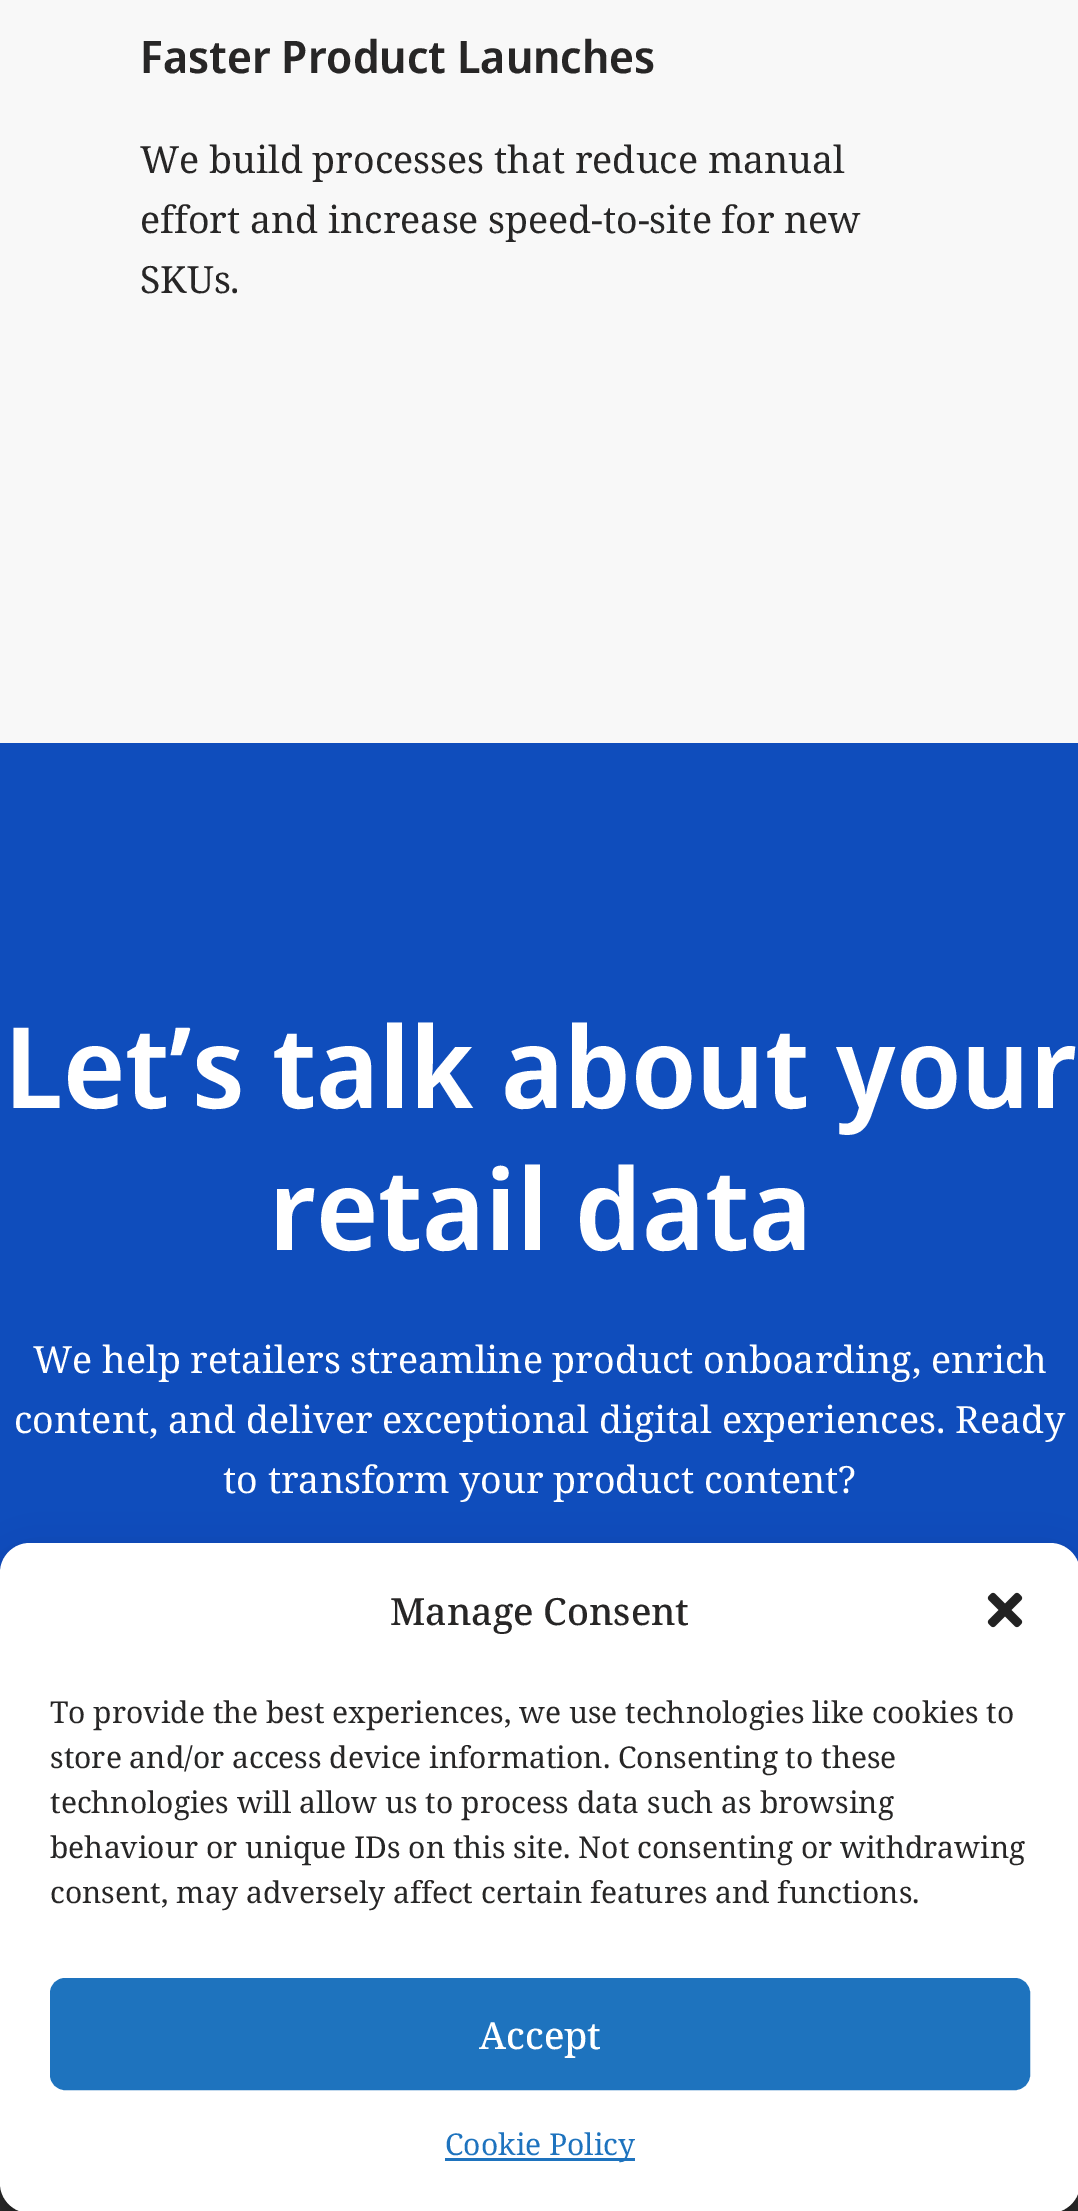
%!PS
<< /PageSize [1078 2211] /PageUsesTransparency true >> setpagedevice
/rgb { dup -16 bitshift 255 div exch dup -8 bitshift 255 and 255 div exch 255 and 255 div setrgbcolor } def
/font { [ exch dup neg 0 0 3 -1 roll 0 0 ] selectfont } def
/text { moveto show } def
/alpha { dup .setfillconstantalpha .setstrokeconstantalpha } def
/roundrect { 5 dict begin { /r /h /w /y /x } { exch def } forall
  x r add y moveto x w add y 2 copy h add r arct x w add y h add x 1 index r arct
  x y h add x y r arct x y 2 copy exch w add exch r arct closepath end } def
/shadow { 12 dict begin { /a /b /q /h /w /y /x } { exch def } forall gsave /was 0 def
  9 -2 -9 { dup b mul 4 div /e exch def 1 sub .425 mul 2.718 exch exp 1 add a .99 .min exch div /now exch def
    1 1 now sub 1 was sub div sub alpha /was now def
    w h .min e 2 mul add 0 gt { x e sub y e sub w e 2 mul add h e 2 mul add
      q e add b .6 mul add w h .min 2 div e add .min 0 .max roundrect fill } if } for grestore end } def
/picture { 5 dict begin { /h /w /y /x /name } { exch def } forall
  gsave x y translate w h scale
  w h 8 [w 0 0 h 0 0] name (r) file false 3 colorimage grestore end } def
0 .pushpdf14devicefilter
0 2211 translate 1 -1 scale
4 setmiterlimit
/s1 { /NotoSansDisplay-SemiBold 45 font 16#272626 rgb } def
/s2 { /NotoSerif-Regular 37.5 font 16#272626 rgb } def
/s3 { /NotoSansDisplay-SemiBold 112.5 font 16#FFFFFF rgb } def
/s4 { /NotoSerif-Regular 37.5 font 16#FFFFFF rgb } def
/s5 { /NotoSerif-Medium 37.5 font 16#272626 rgb } def
/s6 { /NotoSerif-Regular 30 font 16#272626 rgb } def
/s7 { /NotoSerif-Medium 37.5 font 16#FFFFFF rgb } def
/s8 { /NotoSerif-Regular 30 font 16#1E73BE rgb } def
16#F8F8F8 rgb
0 0 1078 2211 rectfill
s1
(Faster Product Launches) 140 73 text
s2
(We build processes that reduce manual) 140 173 text
(effort and increase speed-to-site for new) 140 233 text
(SKUs.) 140 293 text
16#0F4DBC rgb
0 743 1078 830 rectfill
s3
(Let’s talk about your) 4 1108 text
(retail data) 269 1250 text
s4
(We help retailers streamline product onboarding, enrich) 33 1373 text
(content, and deliver exceptional digital experiences. Ready) 14 1433 text
(to transform your product content?) 223 1493 text
16#2E2E2E rgb
0 2183 1078 28 rectfill
16#000000 rgb
0 1558 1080 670 30 7.5 0.23 shadow
0 1568 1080 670 30 25 0.19 shadow
16#FFFFFF rgb
0 1543 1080 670 30 roundrect fill
s5
(Manage Consent) 390 1625 text
(pic1.raw) 987 1592 36 36 picture
s6
(To provide the best experiences, we use technologies like cookies to) 50 1723 text
(store and/or access device information. Consenting to these) 50 1768 text
(technologies will allow us to process data such as browsing) 50 1813 text
(behaviour or unique IDs on this site. Not consenting or withdrawing) 50 1858 text
(consent, may adversely affect certain features and functions.) 50 1903 text
16#1E73BE rgb
51.5 1979.5 977 109 13.5 roundrect gsave fill grestore
3 setlinewidth
stroke
s7
(Accept) 479 2049 text
16#1E73BE rgb
445 2158 190 3 rectfill
s8
(Cookie Policy) 445 2155 text
.poppdf14devicefilter showpage
